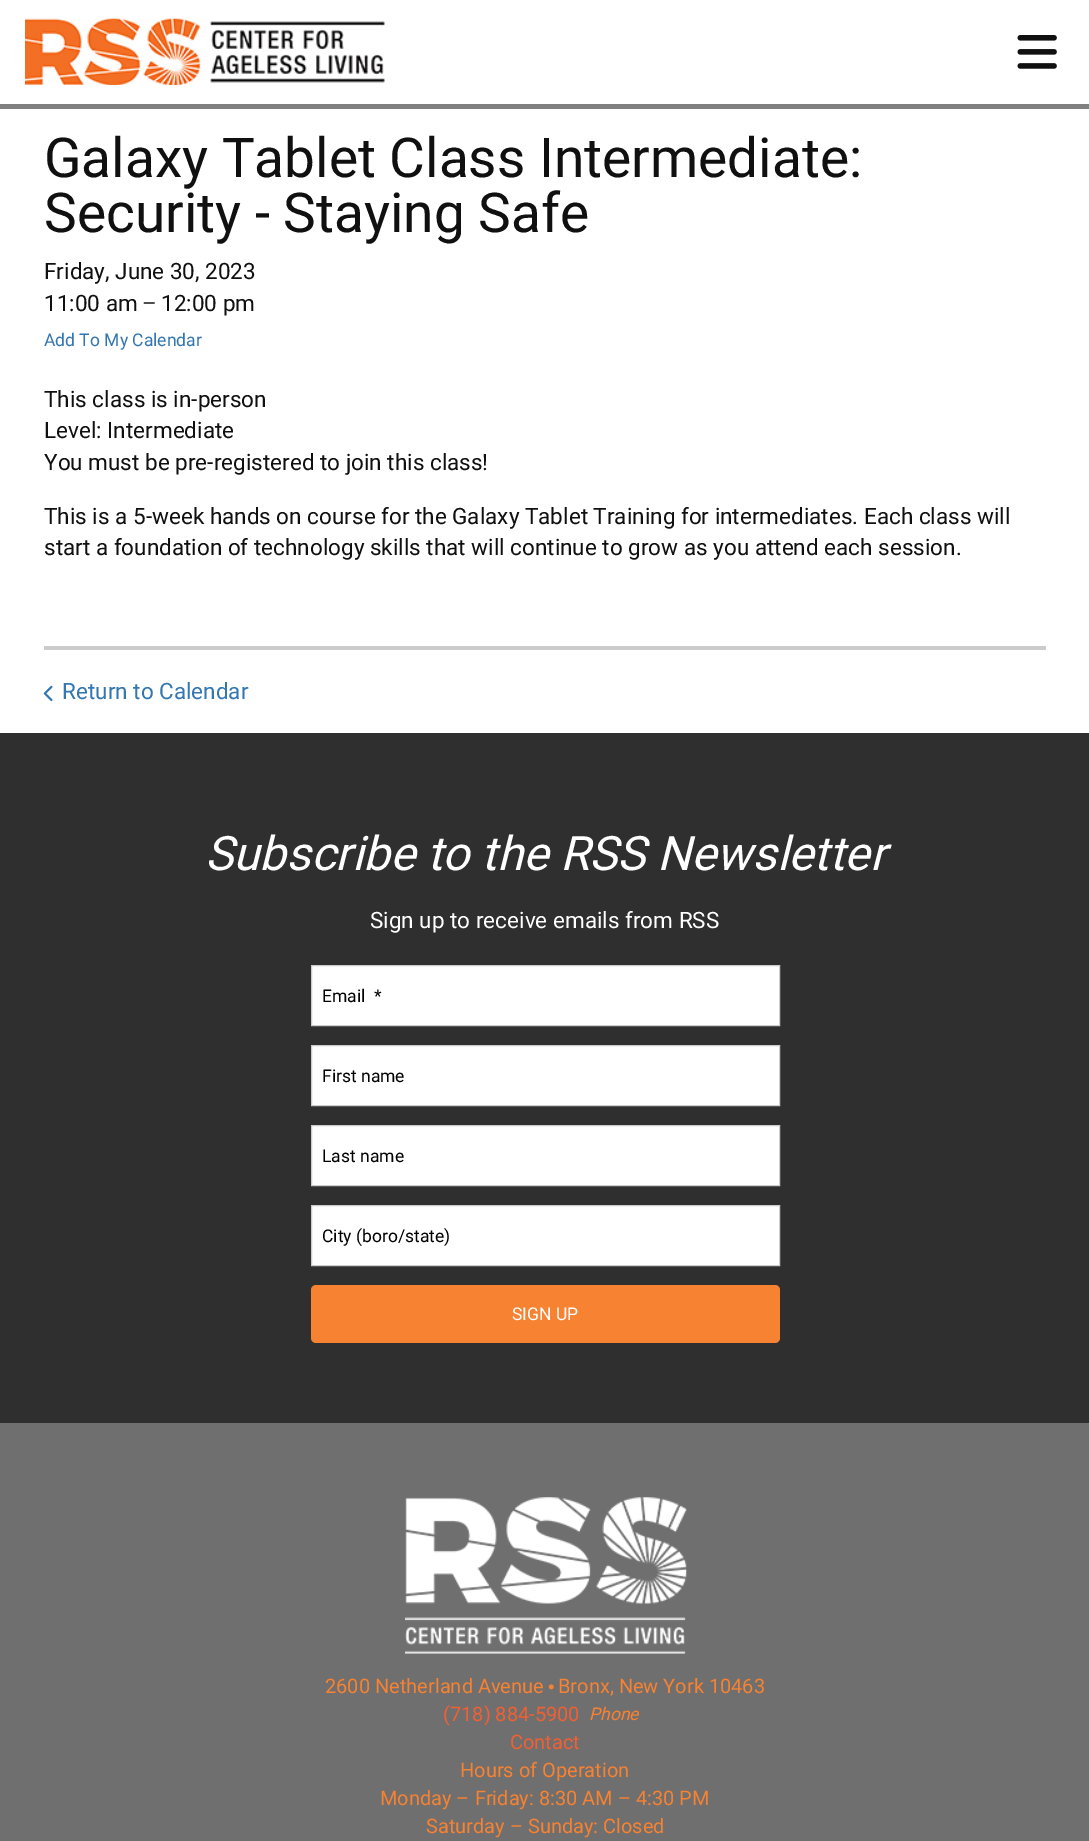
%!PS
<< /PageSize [1089 1841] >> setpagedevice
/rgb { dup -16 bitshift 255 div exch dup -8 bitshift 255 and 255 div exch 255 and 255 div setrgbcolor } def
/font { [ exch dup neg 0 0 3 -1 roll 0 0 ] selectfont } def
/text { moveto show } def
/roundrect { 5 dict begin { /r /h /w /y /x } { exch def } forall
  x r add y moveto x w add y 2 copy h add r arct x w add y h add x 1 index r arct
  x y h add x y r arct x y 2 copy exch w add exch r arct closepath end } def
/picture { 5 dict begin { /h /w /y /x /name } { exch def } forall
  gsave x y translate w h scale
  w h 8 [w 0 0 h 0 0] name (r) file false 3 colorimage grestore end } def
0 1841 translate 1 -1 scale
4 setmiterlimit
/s1 { /Roboto-Regular 55 font 16#101010 rgb } def
/s2 { /Roboto-Regular 22.5 font 16#101010 rgb } def
/s3 { /Roboto-Regular 17.5 font 16#3276B2 rgb } def
/s4 { /Roboto-Regular 22.5 font 16#3276B2 rgb } def
/s5 { /Roboto-Italic 47.5 font 16#FFFFFF rgb } def
/s6 { /Roboto-Regular 22.5 font 16#FFFFFF rgb } def
/s7 { /Roboto-Regular 17.5 font 16#000000 rgb } def
/s8 { /Roboto-Regular 17.5 font 16#FFFFFF rgb } def
/s9 { /Roboto-Regular 20 font 16#F68232 rgb } def
/s10 { /Roboto-Regular 20 font 16#F06032 rgb } def
/s11 { /Roboto-Italic 17.5 font 16#F68232 rgb } def
16#FFFFFF rgb
0 0 1089 1841 rectfill
16#808080 rgb
0 104 1089 5 rectfill
(pic1.raw) 25 18 360 67 picture
(pic2.raw) 1017 35 40 34 picture
16#CCCCCC rgb
44 646 1002 4 rectfill
s1
(Galaxy Tablet Class Intermediate:) 44 177 text
(Security - Staying Safe) 44 232 text
s2
(Friday, June 30, 2023) 44 279 text
(11:00 am) 44 311 text
(–) 142 311 text
(12:00 pm) 161 311 text
s3
(Add To My Calendar) 44 346 text
s2
(This class is in-person) 44 407 text
(Level: Intermediate) 44 438 text
(You must be pre-registered to join this class!) 44 470 text
(This is a 5-week hands on course for the Galaxy Tablet Training for intermediates. Each class will) 44 524 text
(start a foundation of technology skills that will continue to grow as you attend each session.) 44 555 text
(pic3.raw) 43 685 10 17 picture
s4
(Return to Calendar) 62 699 text
16#2F2F2F rgb
0 733 1089 690 rectfill
s5
(Subscribe to the RSS Newsletter) 205 870 text
s6
(Sign up to receive emails from RSS) 370 928 text
311.5 965.5 moveto 779.5 965.5 lineto 779.5 1025.5 lineto 311.5 1025.5 lineto closepath gsave fill grestore
16#CCCCCC rgb
stroke
s7
(Email  *) 322 1002 text
16#FFFFFF rgb
311.5 1045.5 moveto 779.5 1045.5 lineto 779.5 1105.5 lineto 311.5 1105.5 lineto closepath gsave fill grestore
16#CCCCCC rgb
stroke
s7
(First name) 322 1082 text
16#FFFFFF rgb
311.5 1125.5 moveto 779.5 1125.5 lineto 779.5 1185.5 lineto 311.5 1185.5 lineto closepath gsave fill grestore
16#CCCCCC rgb
stroke
s7
(Last name) 322 1162 text
16#FFFFFF rgb
311.5 1205.5 moveto 779.5 1205.5 lineto 779.5 1265.5 lineto 311.5 1265.5 lineto closepath gsave fill grestore
16#CCCCCC rgb
stroke
s7
(City \(boro/state\)) 322 1242 text
16#F68232 rgb
311 1285 469 58 5 roundrect fill
s8
(SIGN UP) 512 1320 text
16#6F6F6F rgb
0 1423 1089 418 rectfill
(pic4.raw) 405 1497 282 157 picture
s9
(2600 Netherland Avenue) 325 1693 text
(pic5.raw) 548 1684 6 6 picture
(Bronx, New York 10463) 558 1693 text
s10
(\(718\) 884-5900) 443 1721 text
s11
(Phone) 589 1720 text
s10
(Contact) 510 1749 text
s9
(Hours of Operation) 460 1777 text
(Monday – Friday: 8:30 AM – 4:30 PM) 380 1805 text
(Saturday – Sunday: Closed) 426 1833 text
showpage
